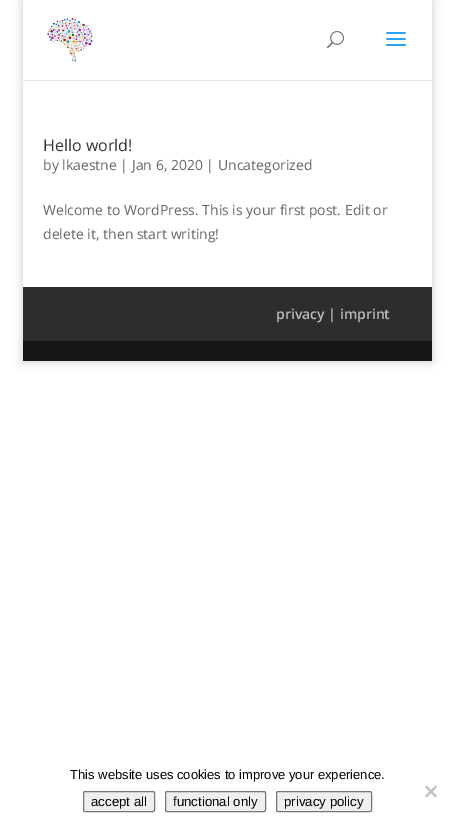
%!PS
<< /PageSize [455 832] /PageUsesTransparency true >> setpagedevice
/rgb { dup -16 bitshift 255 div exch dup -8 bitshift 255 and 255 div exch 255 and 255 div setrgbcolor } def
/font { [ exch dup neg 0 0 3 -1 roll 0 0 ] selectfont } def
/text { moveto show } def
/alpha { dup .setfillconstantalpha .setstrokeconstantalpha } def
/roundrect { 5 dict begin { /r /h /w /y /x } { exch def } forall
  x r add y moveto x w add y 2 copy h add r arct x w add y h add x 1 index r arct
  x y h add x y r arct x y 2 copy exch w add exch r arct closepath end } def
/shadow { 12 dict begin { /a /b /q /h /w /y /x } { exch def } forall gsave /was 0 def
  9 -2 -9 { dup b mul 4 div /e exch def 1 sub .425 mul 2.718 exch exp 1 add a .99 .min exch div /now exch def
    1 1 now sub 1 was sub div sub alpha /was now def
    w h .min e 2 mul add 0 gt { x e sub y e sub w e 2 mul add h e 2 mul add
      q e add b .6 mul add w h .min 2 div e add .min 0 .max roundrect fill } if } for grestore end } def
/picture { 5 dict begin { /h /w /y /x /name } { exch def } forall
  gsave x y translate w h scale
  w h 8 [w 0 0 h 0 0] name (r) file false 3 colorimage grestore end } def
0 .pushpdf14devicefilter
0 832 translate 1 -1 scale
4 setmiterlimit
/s1 { /OpenSans-Regular 16 font 16#333333 rgb } def
/s2 { /OpenSans-Regular 14 font 16#666666 rgb } def
/s3 { /OpenSans-SemiBold 14 font 16#BBBBBB rgb } def
/s4 { /LiberationSans-Regular 13 font 16#000000 rgb } def
/s5 { /LiberationSans-Regular 13.25 font 16#000000 rgb } def
16#FFFFFF rgb
0 0 455 832 rectfill
gsave
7 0 moveto 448 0 lineto 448 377 lineto 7 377 lineto closepath 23 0 moveto 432 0 lineto 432 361 lineto 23 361 lineto closepath eoclip newpath
16#000000 rgb
23 0 409 361 0 5 0.2 shadow
grestore
16#E6E6E6 rgb
23 80 409 1 rectfill
(pic1.raw) 47 18 46 44 picture
(pic2.raw) 327 31 17 18 picture
(pic3.raw) 386 32 20 14 picture
s1
(Hello world!) 43 151 text
s2
(by lkaestne | Jan 6, 2020 | Uncategorized) 43 170 text
(Welcome to WordPress. This is your first post. Edit or) 43 215 text
(delete it, then start writing!) 43 239 text
16#2D2D2D rgb
23 287 409 54 rectfill
s3
(privacy | imprint) 276 319 text
16#171717 rgb
23 341 409 20 rectfill
s4
(This website uses cookies to improve your experience.) 70 779 text
16#C0C0C0 rgb
435.5 785.5 moveto 437 787 lineto 426.5 797.5 lineto 425 796 lineto closepath fill
425 787 moveto 426.5 785.5 lineto 437 796 lineto 435.5 797.5 lineto closepath fill
16#EFEFEF rgb
83.5 791.5 71 20 1.5 roundrect gsave fill grestore
16#767676 rgb
stroke
s5
(accept all) 91 806 text
16#EFEFEF rgb
165.5 791.5 100 20 1.5 roundrect gsave fill grestore
16#767676 rgb
stroke
s5
(functional only) 173 806 text
16#EFEFEF rgb
276.5 791.5 95 20 1.5 roundrect gsave fill grestore
16#767676 rgb
stroke
s5
(privacy policy) 284 806 text
.poppdf14devicefilter showpage
